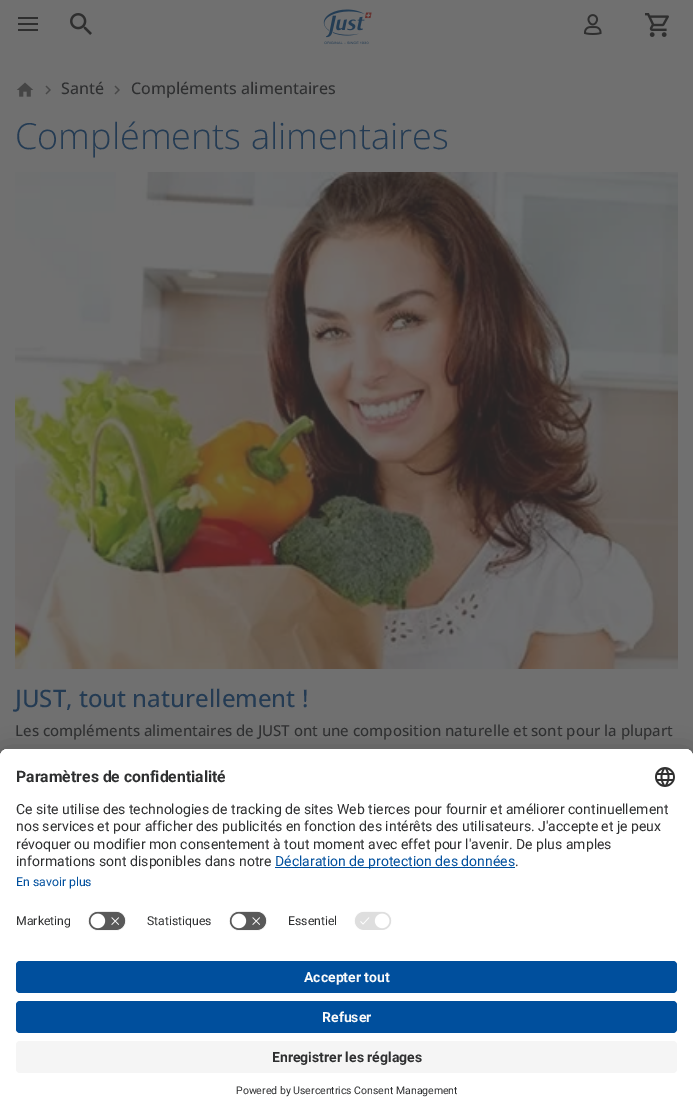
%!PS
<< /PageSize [693 1113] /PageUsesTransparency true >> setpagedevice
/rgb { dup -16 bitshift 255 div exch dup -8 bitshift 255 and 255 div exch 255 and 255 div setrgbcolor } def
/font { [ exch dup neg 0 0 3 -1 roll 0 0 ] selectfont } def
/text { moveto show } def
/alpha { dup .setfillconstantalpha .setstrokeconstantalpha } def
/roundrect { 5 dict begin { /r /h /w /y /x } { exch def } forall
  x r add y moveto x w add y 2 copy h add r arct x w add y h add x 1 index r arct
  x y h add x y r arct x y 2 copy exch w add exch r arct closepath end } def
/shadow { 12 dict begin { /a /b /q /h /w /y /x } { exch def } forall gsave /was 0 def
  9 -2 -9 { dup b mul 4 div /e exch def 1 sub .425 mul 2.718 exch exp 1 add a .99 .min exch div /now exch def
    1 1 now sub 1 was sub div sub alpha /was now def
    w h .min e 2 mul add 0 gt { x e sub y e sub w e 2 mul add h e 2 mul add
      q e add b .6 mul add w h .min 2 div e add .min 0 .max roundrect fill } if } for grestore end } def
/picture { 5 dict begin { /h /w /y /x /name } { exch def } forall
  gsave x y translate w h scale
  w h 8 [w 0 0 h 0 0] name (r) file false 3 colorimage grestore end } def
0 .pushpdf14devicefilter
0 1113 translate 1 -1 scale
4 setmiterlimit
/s1 { /OpenSans-Medium 16 font 16#2E2F30 rgb } def
/s2 { /OpenSans-Light 36 font 16#243B53 rgb } def
/s3 { /OpenSans-Medium 24 font 16#243B53 rgb } def
/s4 { /OpenSans-Medium 15 font 16#2E2F30 rgb } def
/s5 { /Roboto-Bold 15.75 font 16#2E2F30 rgb } def
/s6 { /Roboto-Regular 14 font 16#2E2F30 rgb } def
/s7 { /Roboto-Regular 14 font 16#004F9D rgb } def
/s8 { /Roboto-Regular 12.25 font 16#004F9D rgb } def
/s9 { /Roboto-Regular 12.25 font 16#2E2F30 rgb } def
/s10 { /Roboto-Bold 14 font 16#FAFAFA rgb } def
/s11 { /Roboto-Bold 14 font 16#2E2F30 rgb } def
/s12 { /Roboto-Regular 10.5 font 16#2E2F30 rgb } def
16#707070 rgb
0 0 693 1113 rectfill
16#2E2E2E rgb
18 23 20 2 rectfill
18 17 20 2 rectfill
18 29 20 2 rectfill
(pic1.raw) 70 13 22 22 picture
(pic2.raw) 323 9 49 36 picture
(pic3.raw) 584 14 18 21 picture
(pic4.raw) 645 13 24 24 picture
(pic5.raw) 16 82 18 15 picture
(pic6.raw) 45 85 6 10 picture
s1
(Santé) 61 94 text
(pic6.raw) 114 85 6 10 picture
(Compléments alimentaires) 131 94 text
s2
(Compléments alimentaires) 15 149 text
(pic7.raw) 15 172 663 497 picture
s3
(JUST, tout naturellement !) 15 707 text
s4
(Les compléments alimentaires de JUST ont une composition naturelle et sont pour la plupart) 15 736 text
16#000000 rgb
0 769 693 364 8 14 0.3 shadow
0 754 693 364 8 13 0.22 shadow
16#FFFFFF rgb
8 749 moveto 685 749 lineto 689.5 749 693 752.5 693 757 curveto 693 1113 lineto 0 1113 lineto 0 757 lineto 0 752.5 3.5 749 8 749 curveto closepath fill
8 749 moveto 685 749 lineto 689.5 749 693 752.5 693 757 curveto 693 949 lineto 0 949 lineto 0 757 lineto 0 752.5 3.5 749 8 749 curveto closepath fill
8 749 moveto 685 749 lineto 689.5 749 693 752.5 693 757 curveto 693 905 lineto 0 905 lineto 0 757 lineto 0 752.5 3.5 749 8 749 curveto closepath fill
s5
(Paramètres de confidentialité) 16 782 text
(pic8.raw) 655 767 20 20 picture
s6
(Ce site utilise des technologies de tracking de sites Web tierces pour fournir et améliorer continuellement) 16 814 text
(nos services et pour afficher des publicités en fonction des intérêts des utilisateurs. J'accepte et je peux) 16 831 text
(révoquer ou modifier mon consentement à tout moment avec effet pour l'avenir. De plus amples) 16 849 text
(informations sont disponibles dans notre) 16 866 text
16#004F9D rgb
275 867 240 1 rectfill
(Déclaration de protection des données) 275 866 text
s6
(.) 515 866 text
s8
(En savoir plus) 16 886 text
s9
(Marketing) 16 925 text
(pic9.raw) 88 911 38 20 picture
(Statistiques) 147 925 text
(pic9.raw) 229 911 38 20 picture
(Essentiel) 288 925 text
(pic10.raw) 354 911 38 19 picture
16#004F9D rgb
16 961 661 32 4 roundrect fill
s10
(Accepter tout) 304 982 text
16#004F9D rgb
16 1001 661 32 4 roundrect fill
s10
(Refuser) 322 1022 text
16#F5F5F5 rgb
16 1041 661 32 4 roundrect fill
s11
(Enregistrer les réglages) 272 1062 text
s12
(Powered by Usercentrics Consent Management) 236 1094 text
.poppdf14devicefilter showpage
